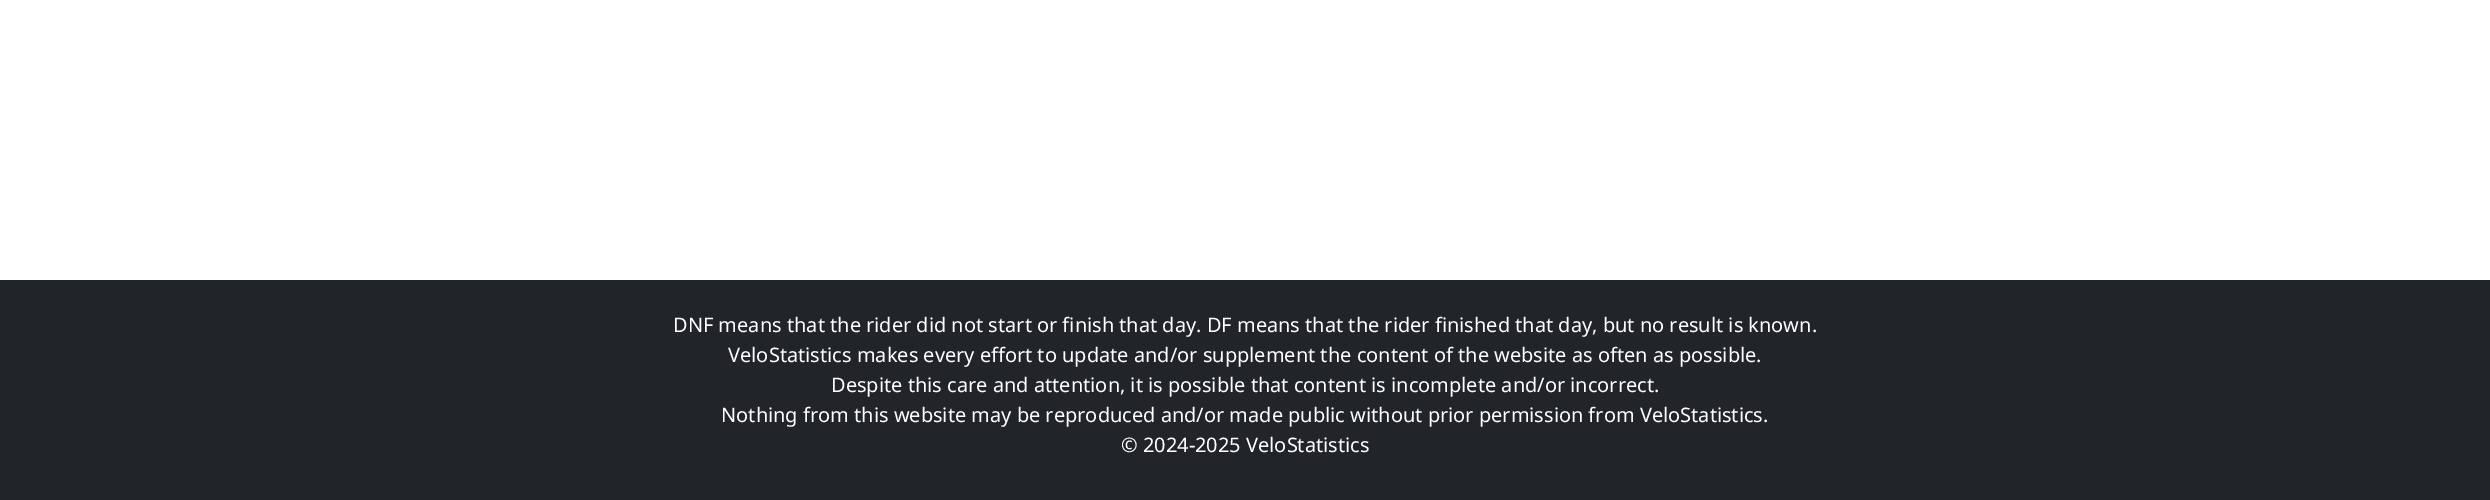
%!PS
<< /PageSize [2490 500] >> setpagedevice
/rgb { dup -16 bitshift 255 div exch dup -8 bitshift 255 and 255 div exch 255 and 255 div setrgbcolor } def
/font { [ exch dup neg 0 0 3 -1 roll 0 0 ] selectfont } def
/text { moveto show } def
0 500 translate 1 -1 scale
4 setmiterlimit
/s1 { /NotoSans-Regular 20 font 16#FFFFFF rgb } def
16#FFFFFF rgb
0 0 2490 500 rectfill
16#212529 rgb
0 280 2490 220 rectfill
s1
(DNF means that the rider did not start or finish that day. DF means that the rider finished that day, but no result is known.) 673 332 text
(VeloStatistics makes every effort to update and/or supplement the content of the website as often as possible.) 728 362 text
(Despite this care and attention, it is possible that content is incomplete and/or incorrect.) 831 392 text
(Nothing from this website may be reproduced and/or made public without prior permission from VeloStatistics.) 721 422 text
(© 2024-2025 VeloStatistics) 1121 452 text
showpage
